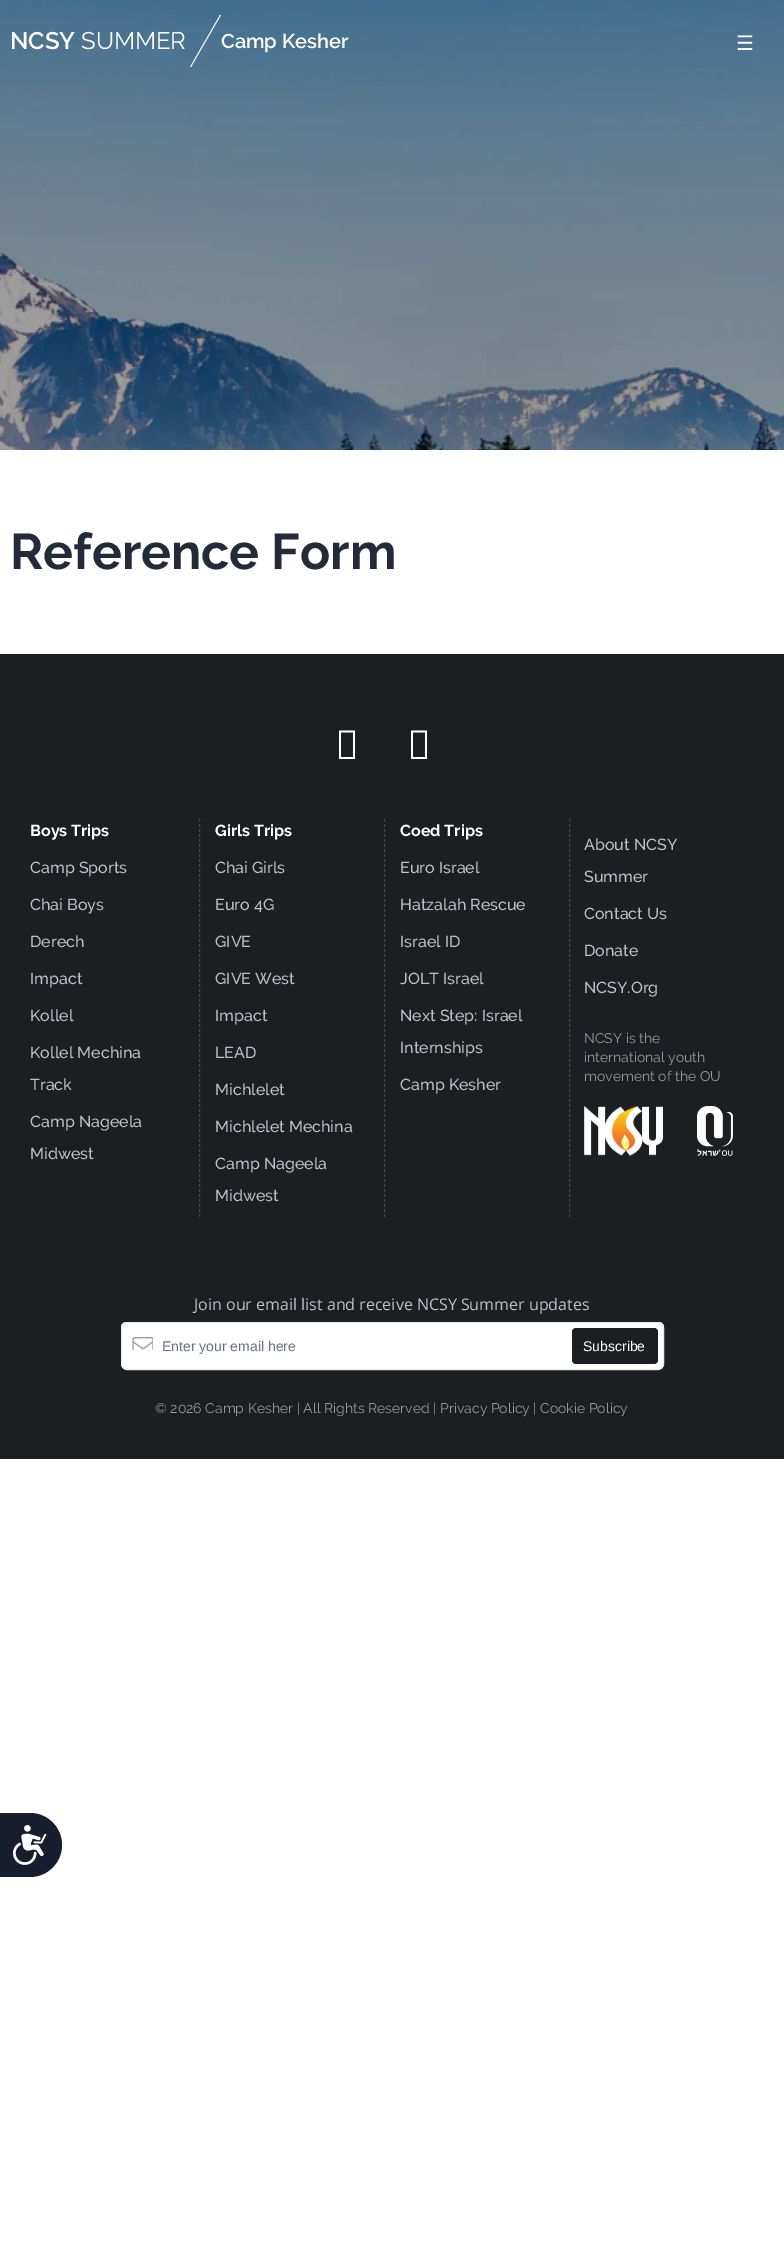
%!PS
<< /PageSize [784 2266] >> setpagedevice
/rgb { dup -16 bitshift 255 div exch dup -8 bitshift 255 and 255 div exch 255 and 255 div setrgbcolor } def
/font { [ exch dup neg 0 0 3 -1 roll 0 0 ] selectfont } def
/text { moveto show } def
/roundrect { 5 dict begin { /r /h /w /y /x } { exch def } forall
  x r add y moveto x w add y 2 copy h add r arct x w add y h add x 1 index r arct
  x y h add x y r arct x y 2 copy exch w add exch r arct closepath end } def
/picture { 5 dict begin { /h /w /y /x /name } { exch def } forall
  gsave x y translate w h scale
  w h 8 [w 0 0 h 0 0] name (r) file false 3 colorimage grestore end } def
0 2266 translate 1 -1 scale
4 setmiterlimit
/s1 { /Raleway-SemiBold 24 font 16#FFFFFF rgb } def
/s2 { /Raleway-Regular 24 font 16#FFFFFF rgb } def
/s3 { /Raleway-SemiBold 20 font 16#FFFFFF rgb } def
/s4 { /DejaVuSans-Regular 20 font 16#FFFFFF rgb } def
/s5 { /Raleway-Bold 50 font 16#232A39 rgb } def
/s6 { /Raleway-Bold 16 font 16#FFFFFF rgb } def
/s7 { /Raleway-Medium 16 font 16#BCC1C5 rgb } def
/s8 { /Raleway-Regular 14 font 16#9096A5 rgb } def
/s9 { /OpenSans-Regular 16 font 16#BCC1C5 rgb } def
/s10 { /LiberationSans-Regular 14 font 16#667085 rgb } def
/s11 { /LiberationSans-Regular 14 font 16#FFFFFF rgb } def
/s12 { /Raleway-Regular 14 font 16#95989C rgb } def
16#FFFFFF rgb
0 0 784 2266 rectfill
(pic1.raw) 0 0 784 450 picture
s1
(NCSY) 10 49 text
s2
(SUMMER) 81 49 text
16#FAFAFA rgb
220 15 moveto 221 15 lineto 191 67 lineto 190 67 lineto closepath fill
s3
(Camp Kesher) 221 48 text
s4
(☰) 736 50 text
s5
(Reference Form) 10 569 text
16#1C1E21 rgb
0 654 784 805 rectfill
16#FFFFFF rgb
339 759 moveto 339 730.5 lineto 355 730.5 lineto 355 759 lineto closepath 341 757 moveto 353 757 lineto 353 732.5 lineto 341 732.5 lineto closepath fill
411 759 moveto 411 730.5 lineto 427 730.5 lineto 427 759 lineto closepath 413 757 moveto 425 757 lineto 425 732.5 lineto 413 732.5 lineto closepath fill
16#43454C rgb
[3 2] 0 setdash
199.5 819 moveto 199.5 1217 lineto stroke
s6
(Boys Trips) 30 836 text
s7
(Camp Sports) 30 873 text
(Chai Boys) 30 910 text
(Derech) 30 947 text
(Impact) 30 984 text
(Kollel) 30 1021 text
(Kollel Mechina) 30 1058 text
(Track) 30 1090 text
(Camp Nageela) 30 1127 text
(Midwest) 30 1159 text
16#43454C rgb
384.5 819 moveto 384.5 1217 lineto stroke
s6
(Girls Trips) 215 836 text
s7
(Chai Girls) 215 873 text
(Euro 4G) 215 910 text
(GIVE) 215 947 text
(GIVE West) 215 984 text
(Impact) 215 1021 text
(LEAD) 215 1058 text
(Michlelet) 215 1095 text
(Michlelet Mechina) 215 1132 text
(Camp Nageela) 215 1169 text
(Midwest) 215 1201 text
16#43454C rgb
569.5 819 moveto 569.5 1217 lineto stroke
s6
(Coed Trips) 400 836 text
s7
(Euro Israel) 400 873 text
(Hatzalah Rescue) 400 910 text
(Israel ID) 400 947 text
(JOLT Israel) 400 984 text
(Next Step: Israel) 400 1021 text
(Internships) 400 1053 text
(Camp Kesher) 400 1090 text
(About NCSY) 584 850 text
(Summer) 584 882 text
(Contact Us) 584 919 text
(Donate) 584 956 text
(NCSY.Org) 584 993 text
s8
(NCSY is the) 584 1043 text
(international youth) 584 1062 text
(movement of the OU) 584 1081 text
(pic2.raw) 584 1106 79 50 picture
(pic3.raw) 697 1106 36 50 picture
s9
(Join our email list and receive NCSY Summer updates) 194 1310 text
16#FFFFFF rgb
121 1322 543 40 5 roundrect fill
121.5 1322.5 542 47 5.5 roundrect gsave fill grestore
16#EBEBEB rgb
[] 0 setdash
stroke
(pic4.raw) 132 1337 21 13 picture
s10
(Enter your email here) 162 1351 text
16#1C1E21 rgb
572 1328 86 36 4 roundrect fill
s11
(Subscribe) 583 1351 text
s12
(© 2026 Camp Kesher | All Rights Reserved | Privacy Policy | Cookie Policy) 155 1413 text
16#171D2D rgb
0 1813 moveto 30 1813 lineto 47.5 1813 62 1827.5 62 1845 curveto 62 1862.5 47.5 1877 30 1877 curveto 0 1877 lineto closepath fill
(pic5.raw) 13 1825 34 40 picture
showpage
